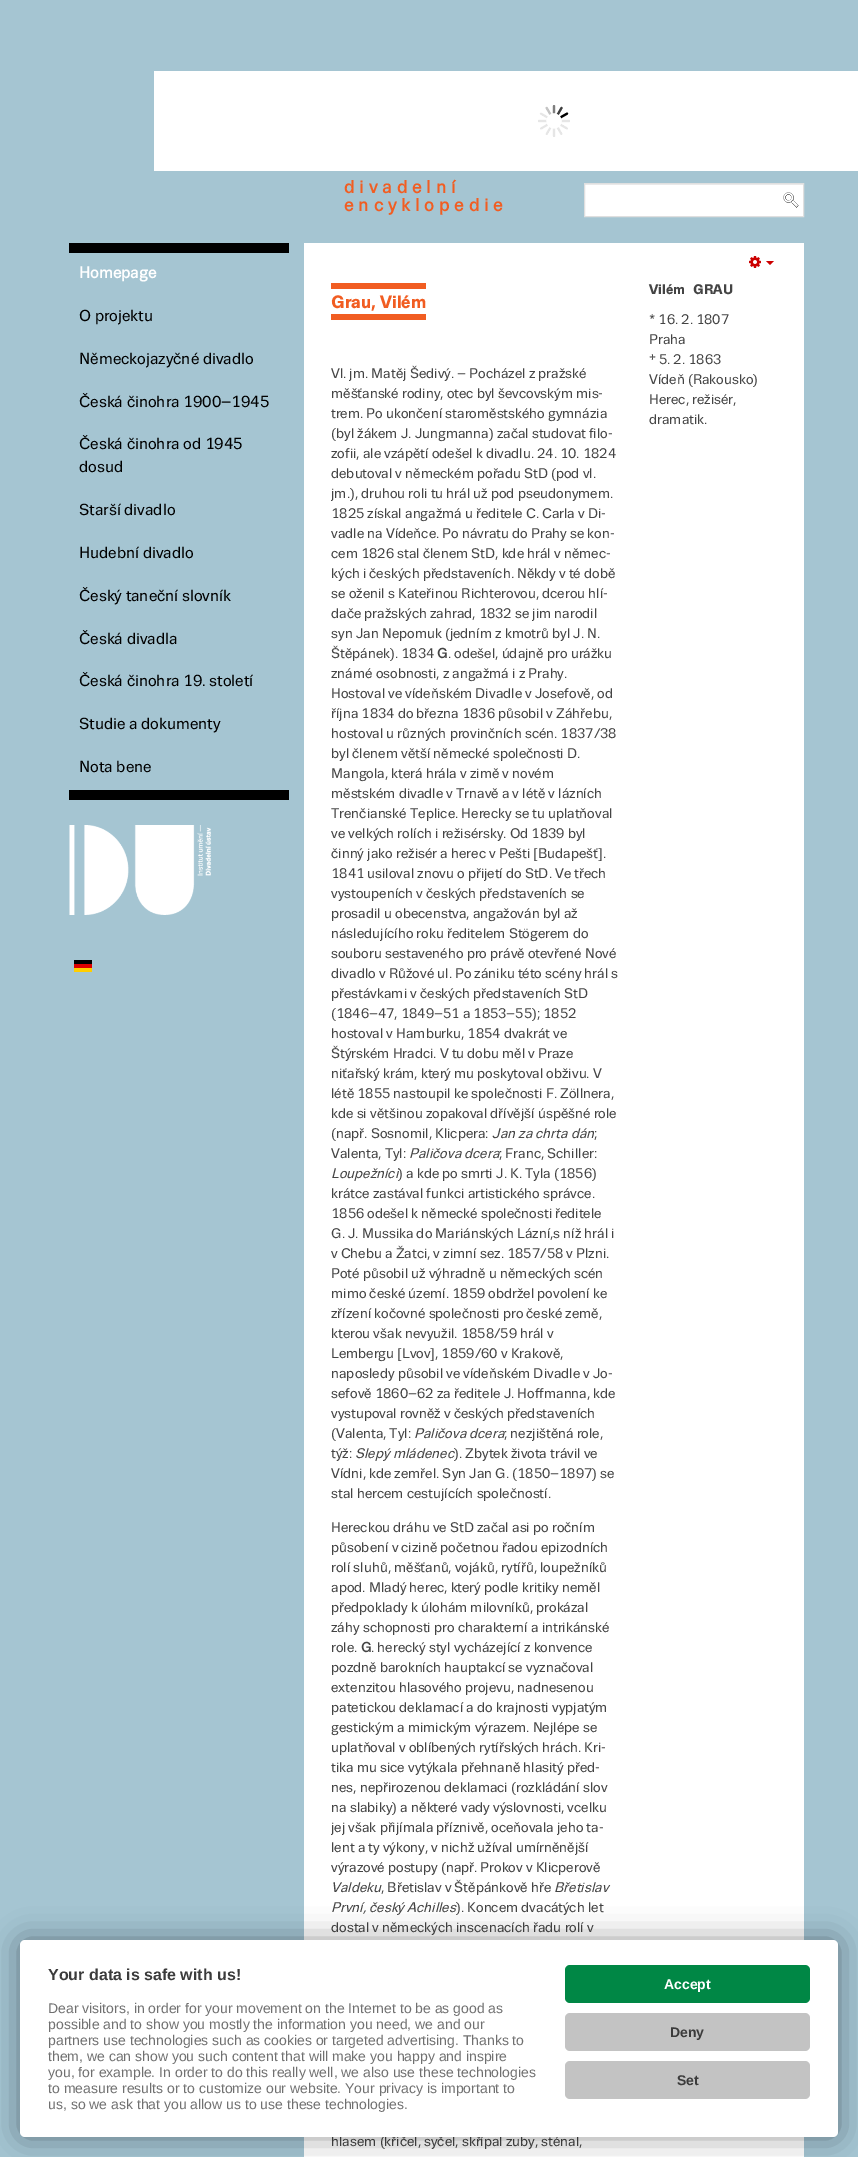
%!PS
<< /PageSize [858 2157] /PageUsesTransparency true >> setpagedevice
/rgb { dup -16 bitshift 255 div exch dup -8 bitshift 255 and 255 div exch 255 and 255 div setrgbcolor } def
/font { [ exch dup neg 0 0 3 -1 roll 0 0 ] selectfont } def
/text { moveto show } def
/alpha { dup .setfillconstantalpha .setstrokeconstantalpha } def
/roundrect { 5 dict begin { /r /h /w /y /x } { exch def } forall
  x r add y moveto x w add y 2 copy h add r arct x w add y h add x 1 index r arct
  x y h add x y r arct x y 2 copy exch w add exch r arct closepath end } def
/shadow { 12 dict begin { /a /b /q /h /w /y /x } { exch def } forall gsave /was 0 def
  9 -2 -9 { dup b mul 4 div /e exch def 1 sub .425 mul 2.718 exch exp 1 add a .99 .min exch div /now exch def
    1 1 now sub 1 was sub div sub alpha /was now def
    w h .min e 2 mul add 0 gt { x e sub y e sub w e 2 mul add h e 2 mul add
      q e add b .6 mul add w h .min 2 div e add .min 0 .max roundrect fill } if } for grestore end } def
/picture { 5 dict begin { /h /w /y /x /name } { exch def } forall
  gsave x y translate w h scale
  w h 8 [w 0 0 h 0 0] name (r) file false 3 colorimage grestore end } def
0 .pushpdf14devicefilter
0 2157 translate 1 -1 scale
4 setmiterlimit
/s1 { /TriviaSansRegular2-Bold 16 font 16#FFFFFF rgb } def
/s2 { /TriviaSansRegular-Regular 16 font 16#000000 rgb } def
/s3 { /TriviaSansRegular-Bold 18 font 16#F15D22 rgb } def
/s4 { /TriviaSansRegular-Bold 14 font 16#444444 rgb } def
/s5 { /TriviaSansRegular-Regular 14 font 16#444444 rgb } def
/s6 { /TriviaSansRegular-Italic 14 font 16#444444 rgb } def
/s7 { /TriviaSansRegular2-Bold 14 font 16#444444 rgb } def
/s8 { /LiberationSans-Bold 16 font 16#3B3B3B rgb } def
/s9 { /LiberationSans-Regular 14 font 16#707070 rgb } def
/s10 { /LiberationSans-Bold 14 font 16#FFFFFF rgb } def
/s11 { /LiberationSans-Bold 14 font 16#3B3B3B rgb } def
16#A5C5D2 rgb
0 0 858 2157 rectfill
16#000000 rgb
69 243 220 10 rectfill
69 790 220 10 rectfill
s1
(Homepage) 79 278 text
s2
(O projektu) 79 321 text
(Německojazyčné divadlo) 79 364 text
(Česká činohra 1900–1945) 79 407 text
(Česká činohra od 1945) 79 449 text
(dosud) 79 472 text
(Starší divadlo) 79 515 text
(Hudební divadlo) 79 558 text
(Český taneční slovník) 79 601 text
(Česká divadla) 79 644 text
(Česká činohra 19. století) 79 686 text
(Studie a dokumenty) 79 729 text
(Nota bene) 79 772 text
(pic1.raw) 69 825 142 90 picture
(pic2.raw) 74 960 18 12 picture
16#FFFFFF rgb
154 71 704 100 rectfill
(pic3.raw) 538 105 32 32 picture
/TriviaSansRegular2-Bold 18 font
16#F15D22 rgb
344 193 moveto 4.9 0 (divadelní) ashow
344 211 moveto 4.9 0 (encyklopedie) ashow
16#FFFFFF rgb
585 185 218 31 rectfill
(pic4.raw) 783 192 16 16 picture
16#ECECEC rgb
585 184 218 1 rectfill
16#DFDFDF rgb
584.5 183.5 219 33 rectstroke
16#FFFFFF rgb
304 243 500 1914 rectfill
(pic5.raw) 749 256 12 12 picture
16#CC0000 rgb
766 261 moveto 774 261 lineto 770 265 lineto closepath fill
16#F15D22 rgb
331 283 95 6 rectfill
331 314 95 6 rectfill
s3
(Grau, Vilém) 331 308 text
s4
(Vilém) 649 294 text
(GRAU) 693 294 text
s5
(* 16. 2. 1807) 649 324 text
(Praha) 649 344 text
(† 5. 2. 1863) 649 364 text
(Vídeň \(Rakousko\)) 649 384 text
(Herec, režisér,) 649 404 text
(dramatik.) 649 424 text
(Vl. jm. Matěj Šedivý. – Pocházel z pražské) 331 378 text
(měšťanské rodiny, otec byl ševcovským mis-) 331 398 text
(trem. Po ukončení staroměstského gymnázia) 331 418 text
(\(byl žákem J. Jungmanna\) začal studovat filo-) 331 438 text
(zofii, ale vzápětí odešel k divadlu. 24. 10. 1824) 331 458 text
(debutoval v německém pořadu StD \(pod vl.) 331 478 text
(jm.\), druhou roli tu hrál už pod pseudonymem.) 331 498 text
(1825 získal angažmá u ředitele C. Carla v Di-) 331 518 text
(vadle na Vídeňce. Po návratu do Prahy se kon-) 331 538 text
(cem 1826 stal členem StD, kde hrál v němec-) 331 558 text
(kých i českých představeních) 331 578 text
s6
(.) 511 578 text
s5
(Někdy v té době) 517 578 text
(se oženil s Kateřinou Richterovou, dcerou hlí-) 331 598 text
(dače pražských zahrad, 1832 se jim narodil) 331 618 text
(syn Jan Nepomuk \(jedním z kmotrů byl J. N.) 331 638 text
(Štěpánek\). 1834) 331 658 text
s7
(G) 437 658 text
s5
(. odešel, údajně pro urážku) 448 658 text
(známé osobnosti, z angažmá i z Prahy.) 331 678 text
(Hostoval ve vídeňském Divadle v Josefově, od) 331 698 text
(října 1834 do března 1836 působil v Záhřebu,) 331 718 text
(hostoval u různých provinčních scén. 1837/38) 331 738 text
(byl členem větší německé společnosti D.) 331 758 text
(Mangola, která hrála v zimě v novém) 331 778 text
(městském divadle v Trnavě a v létě v lázních) 331 798 text
(Trenčianské Teplice. Herecky se tu uplatňoval) 331 818 text
(ve velkých rolích i režisérsky. Od 1839 byl) 331 838 text
(činný jako režisér a herec v Pešti [Budapešť].) 331 858 text
(1841 usiloval znovu o přijetí do StD. Ve třech) 331 878 text
(vystoupeních v českých představeních se) 331 898 text
(prosadil u obecenstva, angažován byl až) 331 918 text
(následujícího roku ředitelem Stögerem do) 331 938 text
(souboru sestaveného pro právě otevřené Nové) 331 958 text
(divadlo v Růžové ul. Po zániku této scény hrál s) 331 978 text
(přestávkami v českých představeních StD) 331 998 text
(\(1846–47, 1849–51 a 1853–55\); 1852) 331 1018 text
(hostoval v Hamburku, 1854 dvakrát ve) 331 1038 text
(Štýrském Hradci. V tu dobu měl v Praze) 331 1058 text
(niťařský krám, který mu poskytoval obživu. V) 331 1078 text
(létě 1855 nastoupil ke společnosti F. Zöllnera,) 331 1098 text
(kde si většinou zopakoval dřívější úspěšné role) 331 1118 text
(\(např. Sosnomil, Klicpera:) 331 1138 text
s6
(Jan za chrta dán) 492 1138 text
s5
(;) 594 1138 text
(Valenta, Tyl:) 331 1158 text
s6
(Paličova dcera) 409 1158 text
s5
(; Franc, Schiller:) 499 1158 text
s6
(Loupežníci) 331 1178 text
s5
(\) a kde po smrti J. K. Tyla \(1856\)) 398 1178 text
(krátce zastával funkci artistického správce.) 331 1198 text
(1856 odešel k německé společnosti ředitele) 331 1218 text
(G. J. Mussika do Mariánských Lázní,s níž hrál i) 331 1238 text
(v Chebu a Žatci, v zimní sez. 1857/58 v Plzni.) 331 1258 text
(Poté působil už výhradně u německých scén) 331 1278 text
(mimo české území. 1859 obdržel povolení ke) 331 1298 text
(zřízení kočovné společnosti pro české země,) 331 1318 text
(kterou však nevyužil. 1858/59 hrál v) 331 1338 text
(Lembergu [Lvov], 1859/60 v Krakově,) 331 1358 text
(naposledy působil ve vídeňském Divadle v Jo-) 331 1378 text
(sefově 1860–62 za ředitele J. Hoffmanna, kde) 331 1398 text
(vystupoval rovněž v českých představeních) 331 1418 text
(\(Valenta, Tyl:) 331 1438 text
s6
(Paličova dcera) 414 1438 text
s5
(; nezjištěná role,) 504 1438 text
(týž:) 331 1458 text
s6
(Slepý mládenec) 355 1458 text
s5
(\). Zbytek života trávil ve) 454 1458 text
(Vídni, kde zemřel. Syn Jan G. \(1850–1897\) se) 331 1478 text
(stal hercem cestujících společností.) 331 1498 text
(Hereckou dráhu ve StD začal asi po ročním) 331 1532 text
(působení v cizině početnou řadou epizodních) 331 1552 text
(rolí sluhů, měšťanů, vojáků, rytířů, loupežníků) 331 1572 text
(apod. Mladý herec, který podle kritiky neměl) 331 1592 text
(předpoklady k úlohám milovníků, prokázal) 331 1612 text
(záhy schopnosti pro charakterní a intrikánské) 331 1632 text
(role.) 331 1652 text
s7
(G) 361 1652 text
s5
(. herecký styl vycházející z konvence) 371 1652 text
(pozdně barokních hauptakcí se vyznačoval) 331 1672 text
(extenzitou hlasového projevu, nadnesenou) 331 1692 text
(patetickou deklamací a do krajnosti vypjatým) 331 1712 text
(gestickým a mimickým výrazem. Nejlépe se) 331 1732 text
(uplatňoval v oblíbených rytířských hrách. Kri-) 331 1752 text
(tika mu sice vytýkala přehnaně hlasitý před-) 331 1772 text
(nes, nepřirozenou deklamaci \(rozkládání slov) 331 1792 text
(na slabiky\) a některé vady výslovnosti, vcelku) 331 1812 text
(jej však přijímala příznivě, oceňovala jeho ta-) 331 1832 text
(lent a ty výkony, v nichž užíval umírněnější) 331 1852 text
(výrazové postupy \(např. Prokov v Klicperově) 331 1872 text
s6
(Valdeku) 331 1892 text
s5
(, Břetislav v Štěpánkově hře) 381 1892 text
s6
(Břetislav) 554 1892 text
(První, český Achilles) 331 1912 text
s5
(\). Koncem dvacátých let) 456 1912 text
(dostal v německých inscenacích řadu rolí v) 331 1932 text
(hlasem \(křičel, syčel, skřípal zuby, sténal,) 331 2146 text
16#000000 rgb
20 1940 818 197 5 15 0.4 shadow
16#FFFFFF rgb
20 1940 818 197 5 roundrect fill
s8
(Your data is safe with us!) 48 1980 text
s9
(Dear visitors, in order for your movement on the Internet to be as good as) 48 2013 text
(possible and to show you mostly the information you need, we and our) 48 2029 text
(partners use technologies such as cookies or targeted advertising. Thanks to) 48 2045 text
(them, we can show you such content that will make you happy and inspire) 48 2061 text
(you, for example. In order to do this really well, we also use these technologies) 48 2077 text
(to measure results or to customize our website. Your privacy is important to) 48 2093 text
(us, so we ask that you allow us to use these technologies.) 48 2109 text
16#008745 rgb
565 1965 245 38 5 roundrect fill
s10
(Accept) 664 1989 text
16#C3C3C3 rgb
565 2013 245 38 5 roundrect fill
s11
(Deny) 670 2037 text
16#C3C3C3 rgb
565 2061 245 38 5 roundrect fill
s11
(Set) 677 2085 text
.poppdf14devicefilter showpage
